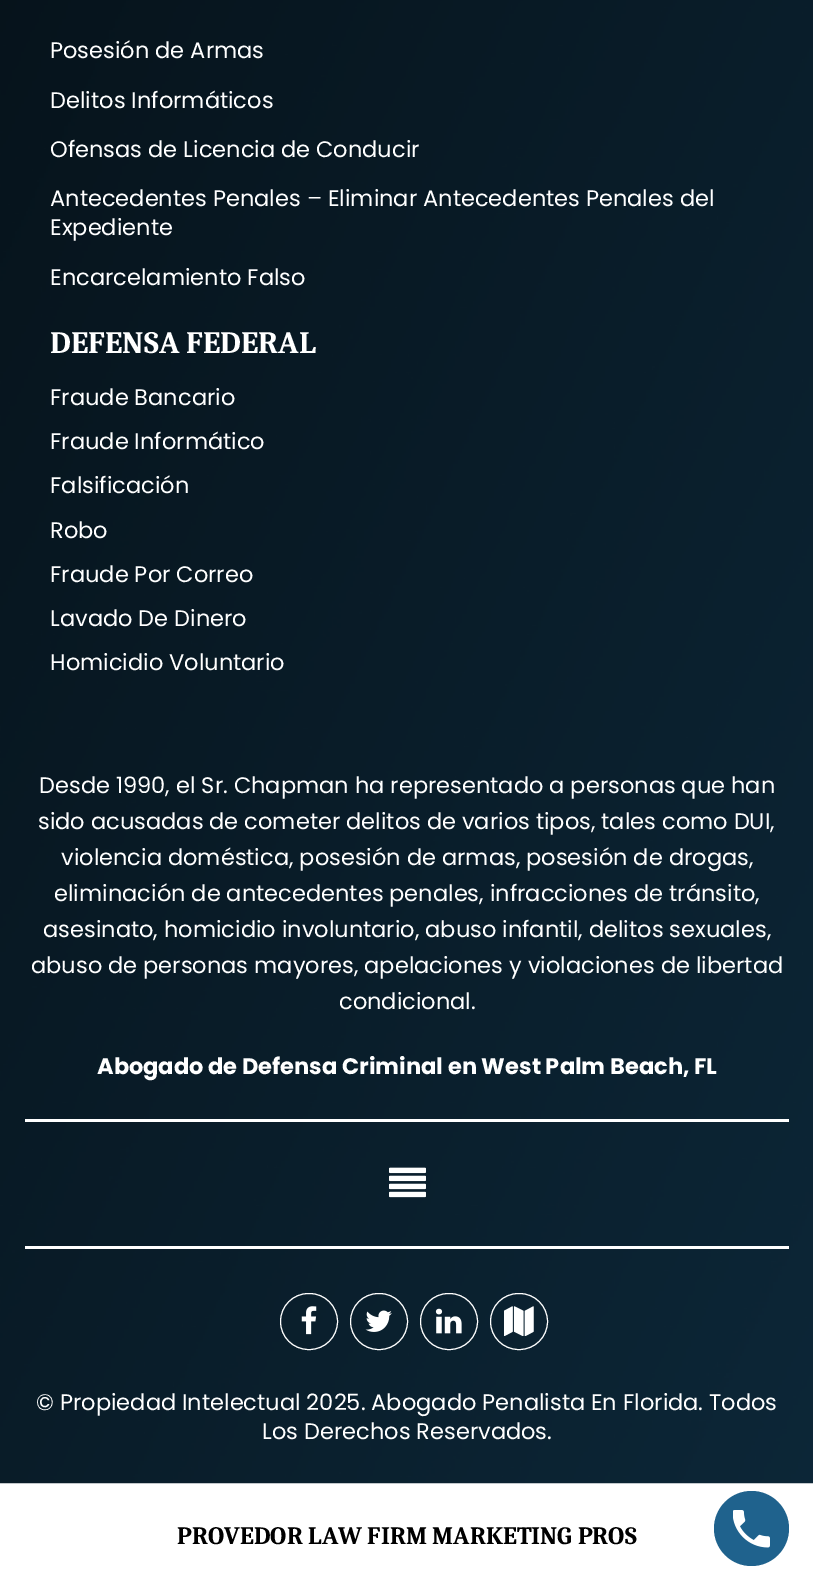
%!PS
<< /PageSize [813 1591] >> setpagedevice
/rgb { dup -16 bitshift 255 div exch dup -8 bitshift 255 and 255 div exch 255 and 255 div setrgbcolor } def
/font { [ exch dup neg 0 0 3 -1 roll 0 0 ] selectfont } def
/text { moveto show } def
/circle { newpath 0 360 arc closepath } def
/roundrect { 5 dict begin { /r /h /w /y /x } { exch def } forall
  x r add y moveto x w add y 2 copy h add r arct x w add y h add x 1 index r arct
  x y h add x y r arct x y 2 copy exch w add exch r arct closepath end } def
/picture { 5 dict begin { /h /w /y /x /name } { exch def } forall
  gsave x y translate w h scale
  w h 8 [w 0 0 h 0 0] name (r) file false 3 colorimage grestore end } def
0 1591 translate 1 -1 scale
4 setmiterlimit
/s1 { /Poppins-Regular 22.5 font 16#FFFFFF rgb } def
/s2 { /Caladea-Bold 31.25 font 16#FFFFFF rgb } def
/s3 { /Poppins-Bold 22.5 font 16#FFFFFF rgb } def
/s4 { /Caladea-Bold 25 font 16#000000 rgb } def
16#FFFFFF rgb
0 0 813 1591 rectfill
(pic1.raw) 0 0 813 1484 picture
s1
(Posesión de Armas) 50 58 text
(Delitos Informáticos) 50 108 text
(Ofensas de Licencia de Conducir) 50 157 text
(Antecedentes Penales – Eliminar Antecedentes Penales del) 50 206 text
(Expediente) 50 235 text
(Encarcelamiento Falso) 50 285 text
s2
(DEFENSA FEDERAL) 50 353 text
s1
(Fraude Bancario) 50 405 text
(Fraude Informático) 50 449 text
(Falsificación) 50 493 text
(Robo) 50 538 text
(Fraude Por Correo) 50 582 text
(Lavado De Dinero) 50 626 text
(Homicidio Voluntario) 50 670 text
(Desde 1990, el Sr. Chapman ha representado a personas que han) 39 793 text
(sido acusadas de cometer delitos de varios tipos, tales como DUI,) 38 829 text
(violencia doméstica, posesión de armas, posesión de drogas,) 61 865 text
(eliminación de antecedentes penales, infracciones de tránsito,) 54 901 text
(asesinato, homicidio involuntario, abuso infantil, delitos sexuales,) 43 937 text
(abuso de personas mayores, apelaciones y violaciones de libertad) 31 973 text
(condicional.) 339 1009 text
s3
(Abogado de Defensa Criminal en West Palm Beach, FL) 97 1074 text
25 1119 764 3 rectfill
25 1246 764 3 rectfill
(pic2.raw) 389 1167 37 31 picture
280.5 1293.5 57 56 28 roundrect stroke
(pic3.raw) 301 1306 16 29 picture
350.5 1293.5 57 56 28 roundrect stroke
(pic4.raw) 365 1310 27 22 picture
420.5 1293.5 57 56 28 roundrect stroke
(pic5.raw) 435 1308 27 26 picture
490.5 1293.5 57 56 28 roundrect stroke
(pic6.raw) 504 1306 30 30 picture
s1
(© Propiedad Intelectual 2025. Abogado Penalista En Florida. Todos) 36 1410 text
(Los Derechos Reservados.) 262 1439 text
s4
(PROVEDOR LAW FIRM MARKETING PROS) 177 1544 text
16#1F628D rgb
751.5 1528.5 37.5 circle fill
(pic7.raw) 733 1510 37 38 picture
showpage
